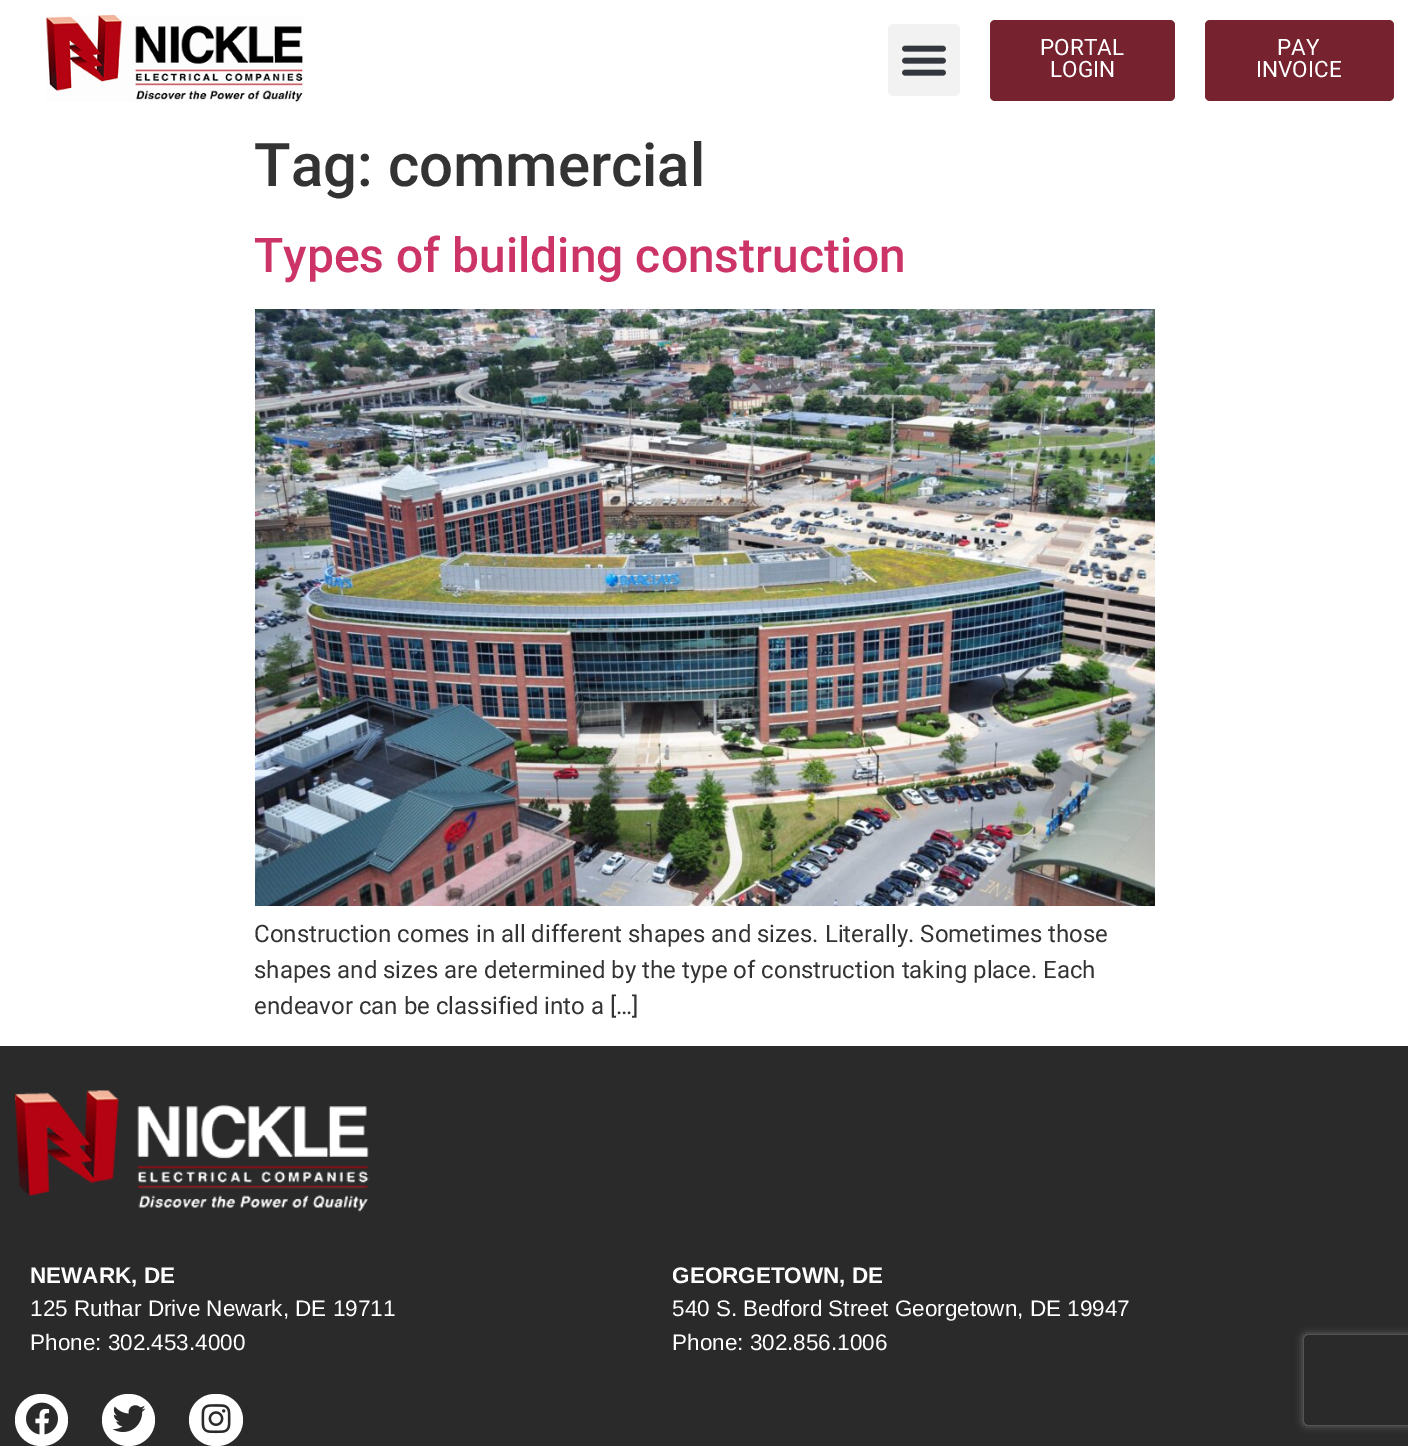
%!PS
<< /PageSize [1408 1446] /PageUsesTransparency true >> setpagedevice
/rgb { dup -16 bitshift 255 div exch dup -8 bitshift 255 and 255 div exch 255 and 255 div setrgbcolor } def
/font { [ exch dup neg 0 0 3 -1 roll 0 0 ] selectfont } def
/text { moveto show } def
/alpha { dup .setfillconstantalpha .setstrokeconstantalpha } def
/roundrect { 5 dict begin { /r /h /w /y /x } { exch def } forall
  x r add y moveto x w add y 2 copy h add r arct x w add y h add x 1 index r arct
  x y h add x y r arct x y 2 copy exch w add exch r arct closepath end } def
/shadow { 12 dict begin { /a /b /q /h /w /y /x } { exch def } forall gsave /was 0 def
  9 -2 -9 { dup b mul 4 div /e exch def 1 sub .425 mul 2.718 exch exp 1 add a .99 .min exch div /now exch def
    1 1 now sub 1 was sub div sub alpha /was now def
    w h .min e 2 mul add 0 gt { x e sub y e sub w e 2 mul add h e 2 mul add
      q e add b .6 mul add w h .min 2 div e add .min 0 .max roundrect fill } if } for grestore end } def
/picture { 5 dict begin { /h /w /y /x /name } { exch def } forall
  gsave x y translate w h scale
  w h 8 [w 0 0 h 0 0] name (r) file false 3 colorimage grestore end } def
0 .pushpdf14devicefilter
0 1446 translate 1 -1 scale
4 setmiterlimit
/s1 { /Roboto-Regular 22.5 font 16#FFFFFF rgb } def
/s2 { /Roboto-Medium 60 font 16#333333 rgb } def
/s3 { /Roboto-Medium 48 font 16#CC3366 rgb } def
/s4 { /Roboto-Regular 24 font 16#333333 rgb } def
/s5 { /LiberationSans-Bold 22.5 font 16#FFFFFF rgb } def
/s6 { /LiberationSans-Regular 22.5 font 16#FFFFFF rgb } def
16#FFFFFF rgb
0 0 1408 1446 rectfill
(pic1.raw) 46 15 258 87 picture
16#F2F2F2 rgb
888 24 72 72 5 roundrect fill
(pic2.raw) 902 45 44 31 picture
16#76232F rgb
990 20 185 81 5 roundrect fill
s1
(PORTAL) 1040 55 text
(LOGIN) 1050 77 text
16#76232F rgb
1205 20 189 81 5 roundrect fill
s1
(PAY) 1277 55 text
(INVOICE) 1256 77 text
s2
(Tag: commercial) 254 186 text
s3
(Types of building construction) 254 272 text
(pic3.raw) 255 309 900 597 picture
s4
(Construction comes in all different shapes and sizes. Literally. Sometimes those) 254 942 text
(shapes and sizes are determined by the type of construction taking place. Each) 254 978 text
(endeavor can be classified into a […]) 254 1014 text
16#2B2A2A rgb
0 1046 1408 400 rectfill
(pic4.raw) 15 1090 354 122 picture
s5
(NEWARK, DE) 30 1283 text
s6
(125 Ruthar Drive Newark, DE 19711) 30 1316 text
(Phone: 302.453.4000) 30 1350 text
s5
(GEORGETOWN, DE) 672 1283 text
s6
(540 S. Bedford Street Georgetown, DE 19947) 672 1316 text
(Phone: 302.856.1006) 672 1350 text
15 1394 53 52 26 roundrect fill
(pic5.raw) 26 1402 32 33 picture
102 1394 53 52 26 roundrect fill
(pic6.raw) 112 1405 34 27 picture
189 1394 54 52 26 roundrect fill
(pic7.raw) 201 1404 30 30 picture
gsave
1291 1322 moveto 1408 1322 lineto 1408 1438 lineto 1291 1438 lineto closepath 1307 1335 moveto 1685 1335 lineto 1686.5 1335 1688 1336.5 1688 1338 curveto 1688 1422 lineto 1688 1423.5 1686.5 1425 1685 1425 curveto 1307 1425 lineto 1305.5 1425 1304 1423.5 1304 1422 curveto 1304 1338 lineto 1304 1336.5 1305.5 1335 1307 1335 curveto closepath eoclip newpath
16#808080 rgb
1304 1335 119 90 3 4 1 shadow
grestore
.poppdf14devicefilter showpage
